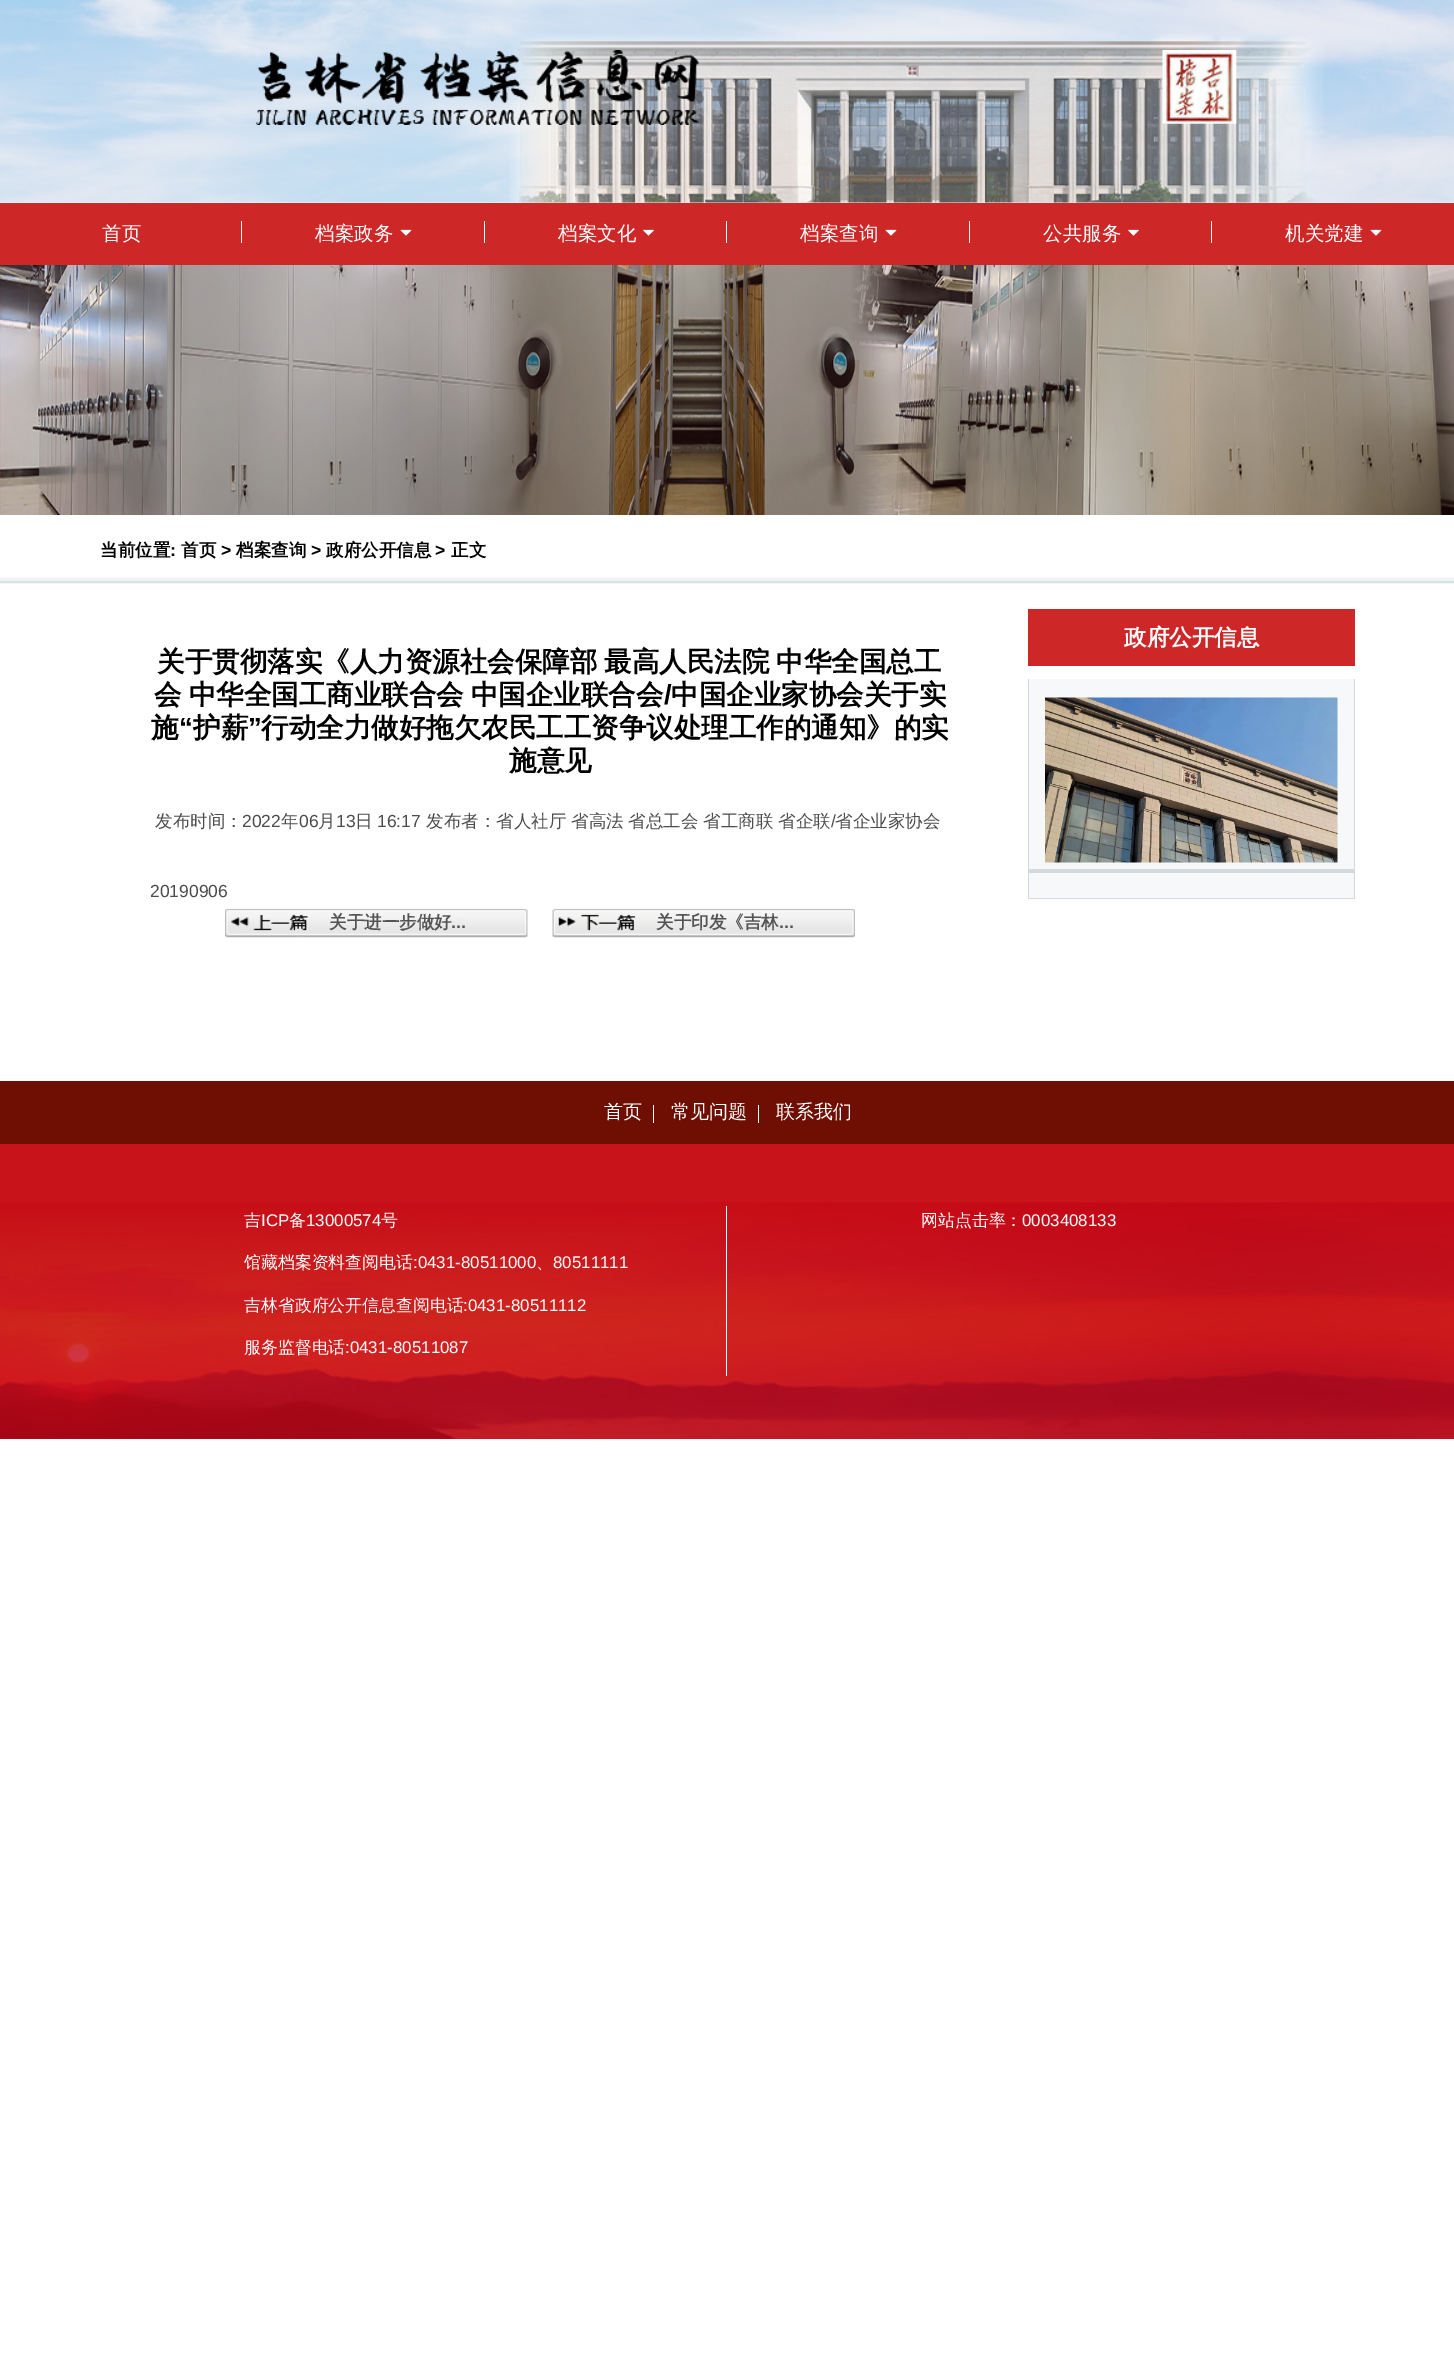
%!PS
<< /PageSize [1454 2357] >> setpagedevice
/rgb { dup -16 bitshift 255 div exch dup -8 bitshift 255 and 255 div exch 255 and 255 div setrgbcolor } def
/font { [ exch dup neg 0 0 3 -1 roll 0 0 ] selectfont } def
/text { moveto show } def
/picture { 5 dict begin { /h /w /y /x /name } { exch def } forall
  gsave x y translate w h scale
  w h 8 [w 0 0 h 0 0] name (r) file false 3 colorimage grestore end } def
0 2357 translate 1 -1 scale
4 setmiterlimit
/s1 { /WenQuanYiZenHei-Medium 19.5 font 16#FFFFFF rgb } def
/s2 { /WenQuanYiZenHei-Bold 17.5 font 16#000000 rgb } def
/s3 { /LiberationSans-Bold 17.5 font 16#000000 rgb } def
/s4 { /WenQuanYiZenHei-Bold 22.5 font 16#FFFFFF rgb } def
/s5 { /LiberationSans-Bold 27.5 font 16#000000 rgb } def
/s6 { /WenQuanYiZenHei-Bold 27.5 font 16#000000 rgb } def
/s7 { /WenQuanYiZenHei-Medium 17.5 font 16#4C4C4C rgb } def
/s8 { /LiberationSans-Regular 17.5 font 16#4C4C4C rgb } def
/s9 { /WenQuanYiZenHei-Bold 17.5 font 16#545454 rgb } def
/s10 { /LiberationSans-Bold 17.5 font 16#545454 rgb } def
/s11 { /WenQuanYiZenHei-Medium 19 font 16#FFFFFF rgb } def
/s12 { /WenQuanYiZenHei-Medium 16.9 font 16#FFFFFF rgb } def
/s13 { /LiberationSans-Regular 16.9 font 16#FFFFFF rgb } def
16#FFFFFF rgb
0 0 1454 2357 rectfill
(pic1.raw) 0 0 1454 203 picture
(pic3.raw) 509 34 815 169 picture
(pic2.raw) 256 50 443 75 picture
(pic4.raw) 1162 50 75 74 picture
16#CD2727 rgb
0 203 1454 62 rectfill
s1
(首页) 102 240 text
241 221 1 22 rectfill
(档案政务) 315 240 text
(pic5.raw) 400 229 12 7 picture
484 221 1 22 rectfill
(档案文化) 558 240 text
(pic6.raw) 643 229 11 7 picture
726 221 1 22 rectfill
(档案查询) 800 240 text
(pic5.raw) 885 229 12 7 picture
969 221 1 22 rectfill
(公共服务) 1043 240 text
(pic6.raw) 1128 229 11 7 picture
1211 221 1 22 rectfill
(机关党建) 1285 240 text
(pic5.raw) 1370 229 12 7 picture
(pic7.raw) 0 265 1454 250 picture
(pic8.raw) 0 577 1454 7 picture
s2
(当前位置) 100 556 text
s3
(:) 170 556 text
s2
(首页) 181 556 text
s3
(>) 221 556 text
s2
(档案查询) 236 556 text
s3
(>) 311 556 text
s2
(政府公开信息) 326 556 text
s3
(>) 435 556 text
s2
(正文) 451 556 text
16#CD2727 rgb
1028 609 327 57 rectfill
s4
(政府公开信息) 1124 645 text
16#F7F8FA rgb
1029 679 325 190 rectfill
16#D4D9DD rgb
1354 679 1 191 rectfill
1028 869 327 4 rectfill
1028 679 1 191 rectfill
(pic9.raw) 1045 697 293 166 picture
16#F7F8FA rgb
1029 873 325 25 rectfill
16#D4D9DD rgb
1354 870 1 29 rectfill
1028 898 327 1 rectfill
1028 870 1 29 rectfill
/WenQuanYiZenHei-Bold 27.5 font
16#000000 rgb
157 671 moveto -1 0 32 (关于贯彻落实《人力资源社会保障部 最高人民法院 中华全国总工) widthshow
154 704 moveto -1 0 32 (会 中华全国工商业联合会 中国企业联合会) widthshow
s5
(/) 664 704 text
s6
(中国企业家协会关于实) 671 704 text
(施) 151 737 text
s5
(“) 179 737 text
s6
(护薪) 193 737 text
s5
(”) 248 737 text
s6
(行动全力做好拖欠农民工工资争议处理工作的通知》的实) 261 737 text
(施意见) 509 770 text
s7
(发布时间：) 155 827 text
s8
(2022) 242 827 text
s7
(年) 281 827 text
s8
(06) 299 827 text
s7
(月) 318 827 text
s8
(13) 336 827 text
s7
(日) 355 827 text
s8
(16:17) 377 827 text
s7
(发布者：省人社厅) 426 827 text
(省高法) 571 827 text
(省总工会) 628 827 text
(省工商联) 703 827 text
(省企联) 778 827 text
s8
(/) 831 827 text
s7
(省企业家协会) 835 827 text
s8
(20190906) 150 897 text
(pic10.raw) 225 908 303 30 picture
s9
(关于进一步做好) 329 928 text
s10
(...) 451 928 text
(pic11.raw) 552 908 303 30 picture
s9
(关于印发《吉林) 656 928 text
s10
(...) 779 928 text
16#6F0F04 rgb
0 1081 1454 63 rectfill
s11
(首页) 604 1118 text
653 1105 1 18 rectfill
(常见问题) 671 1118 text
758 1105 1 18 rectfill
(联系我们) 776 1118 text
16#C8131A rgb
0 1144 1454 295 rectfill
(pic12.raw) 0 1202 1454 237 picture
16#FFFFFF rgb
726 1206 1 170 rectfill
s12
(吉) 244 1226 text
s13
(ICP) 261 1226 text
s12
(备) 289 1226 text
s13
(13000574) 306 1226 text
s12
(号) 381 1226 text
(馆藏档案资料查阅电话) 244 1268 text
s13
(:0431-80511000) 413 1268 text
s12
(、) 536 1268 text
s13
(80511111) 553 1268 text
s12
(吉林省政府公开信息查阅电话) 244 1311 text
s13
(:0431-80511112) 463 1311 text
s12
(服务监督电话) 244 1353 text
s13
(:0431-80511087) 345 1353 text
s12
(网站点击率：) 921 1226 text
s13
(0003408133) 1022 1226 text
showpage
